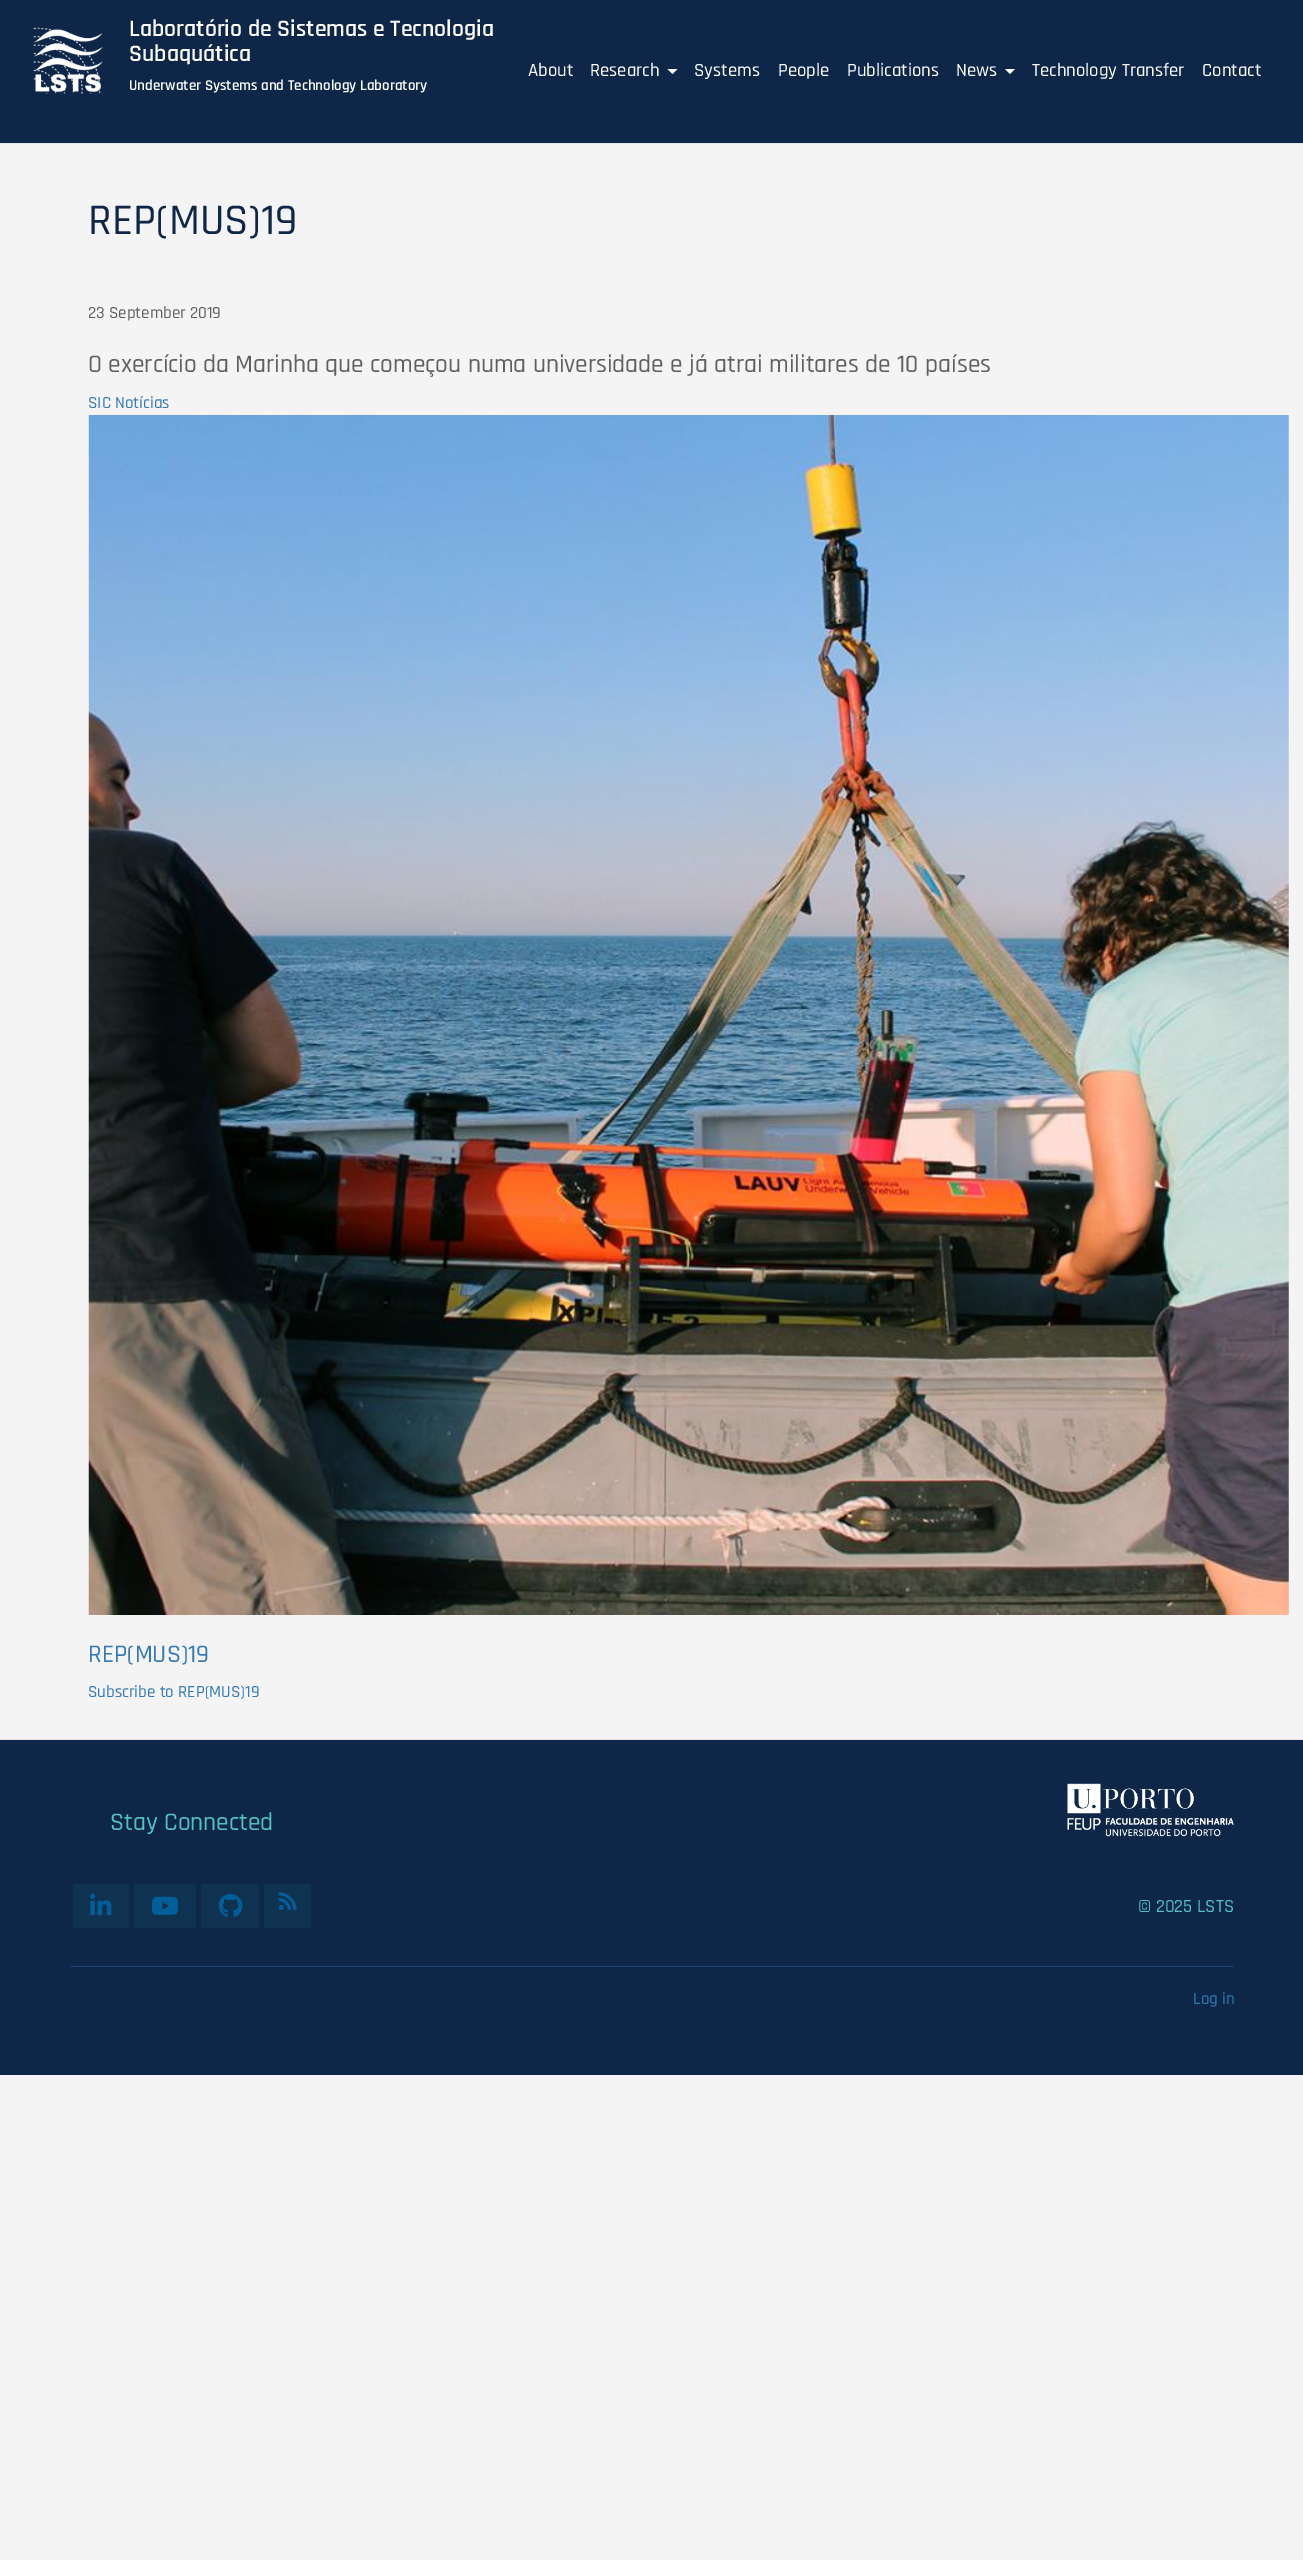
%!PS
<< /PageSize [1303 2560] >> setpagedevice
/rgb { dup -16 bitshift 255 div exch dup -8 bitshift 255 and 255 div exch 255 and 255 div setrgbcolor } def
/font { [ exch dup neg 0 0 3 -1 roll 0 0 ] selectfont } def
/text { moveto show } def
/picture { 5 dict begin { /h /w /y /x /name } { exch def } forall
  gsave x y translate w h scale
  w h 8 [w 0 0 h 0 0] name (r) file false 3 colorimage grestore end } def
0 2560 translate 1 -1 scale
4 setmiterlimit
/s1 { /Rajdhani-SemiBold 23.75 font 16#FFFFFF rgb } def
/s2 { /Rajdhani-SemiBold 15 font 16#FFFFFF rgb } def
/s3 { /Rajdhani-Medium 18.75 font 16#FFFFFF rgb } def
/s4 { /Rajdhani-Medium 44 font 16#0E2748 rgb } def
/s5 { /Rajdhani-Medium 17 font 16#606060 rgb } def
/s6 { /Rajdhani-Medium 25.4 font 16#606060 rgb } def
/s7 { /Rajdhani-Medium 17 font 16#337AB7 rgb } def
/s8 { /Rajdhani-Medium 25.4 font 16#337AB7 rgb } def
/s9 { /Rajdhani-Medium 25.4 font 16#52C2C1 rgb } def
/s10 { /Rajdhani-Medium 18.5 font 16#52C2C1 rgb } def
16#F4F4F4 rgb
0 0 1303 2560 rectfill
16#0E2748 rgb
0 0 1303 143 rectfill
16#E7E7E7 rgb
0 143 1303 1 rectfill
(pic1.raw) 33 27 70 67 picture
s1
(Laboratório de Sistemas e Tecnologia) 129 36 text
(Subaquática) 129 61 text
s2
(Underwater Systems and Technology Laboratory) 129 90 text
s3
(About) 528 76 text
(Research) 590 76 text
667.5 69 moveto 677.5 69 lineto 672.5 74 lineto closepath fill
(Systems) 694 76 text
(People) 778 76 text
(Publications) 847 76 text
(News) 956 76 text
1005 69 moveto 1015 69 lineto 1010 74 lineto closepath fill
(Technology Transfer) 1032 76 text
(Contact) 1202 76 text
s4
(REP\(MUS\)19) 88 234 text
s5
(23 September 2019) 88 318 text
s6
(O exercício da Marinha que começou numa universidade e já atrai militares de 10 países) 88 372 text
s7
(SIC Notícias) 88 408 text
(pic2.raw) 88 415 1201 1200 picture
s8
(REP\(MUS\)19) 88 1662 text
s7
(Subscribe to REP\(MUS\)19) 88 1697 text
16#0E2748 rgb
0 1740 1303 335 rectfill
16#E5E5E5 rgb
0 1739 1303 1 rectfill
s9
(Stay Connected) 110 1830 text
16#103251 rgb
73 1884 56 44 rectfill
(pic3.raw) 90 1893 22 22 picture
134 1884 62 44 rectfill
(pic4.raw) 152 1896 26 19 picture
201 1884 58 44 rectfill
(pic5.raw) 218 1894 25 23 picture
264 1884 47 44 rectfill
(pic6.raw) 278 1892 19 18 picture
(pic7.raw) 1067 1783 167 54 picture
s10
(© 2025 LSTS) 1138 1912 text
16#1A4175 rgb
70 1966 1164 1 rectfill
s7
(Log in) 1193 2004 text
showpage
